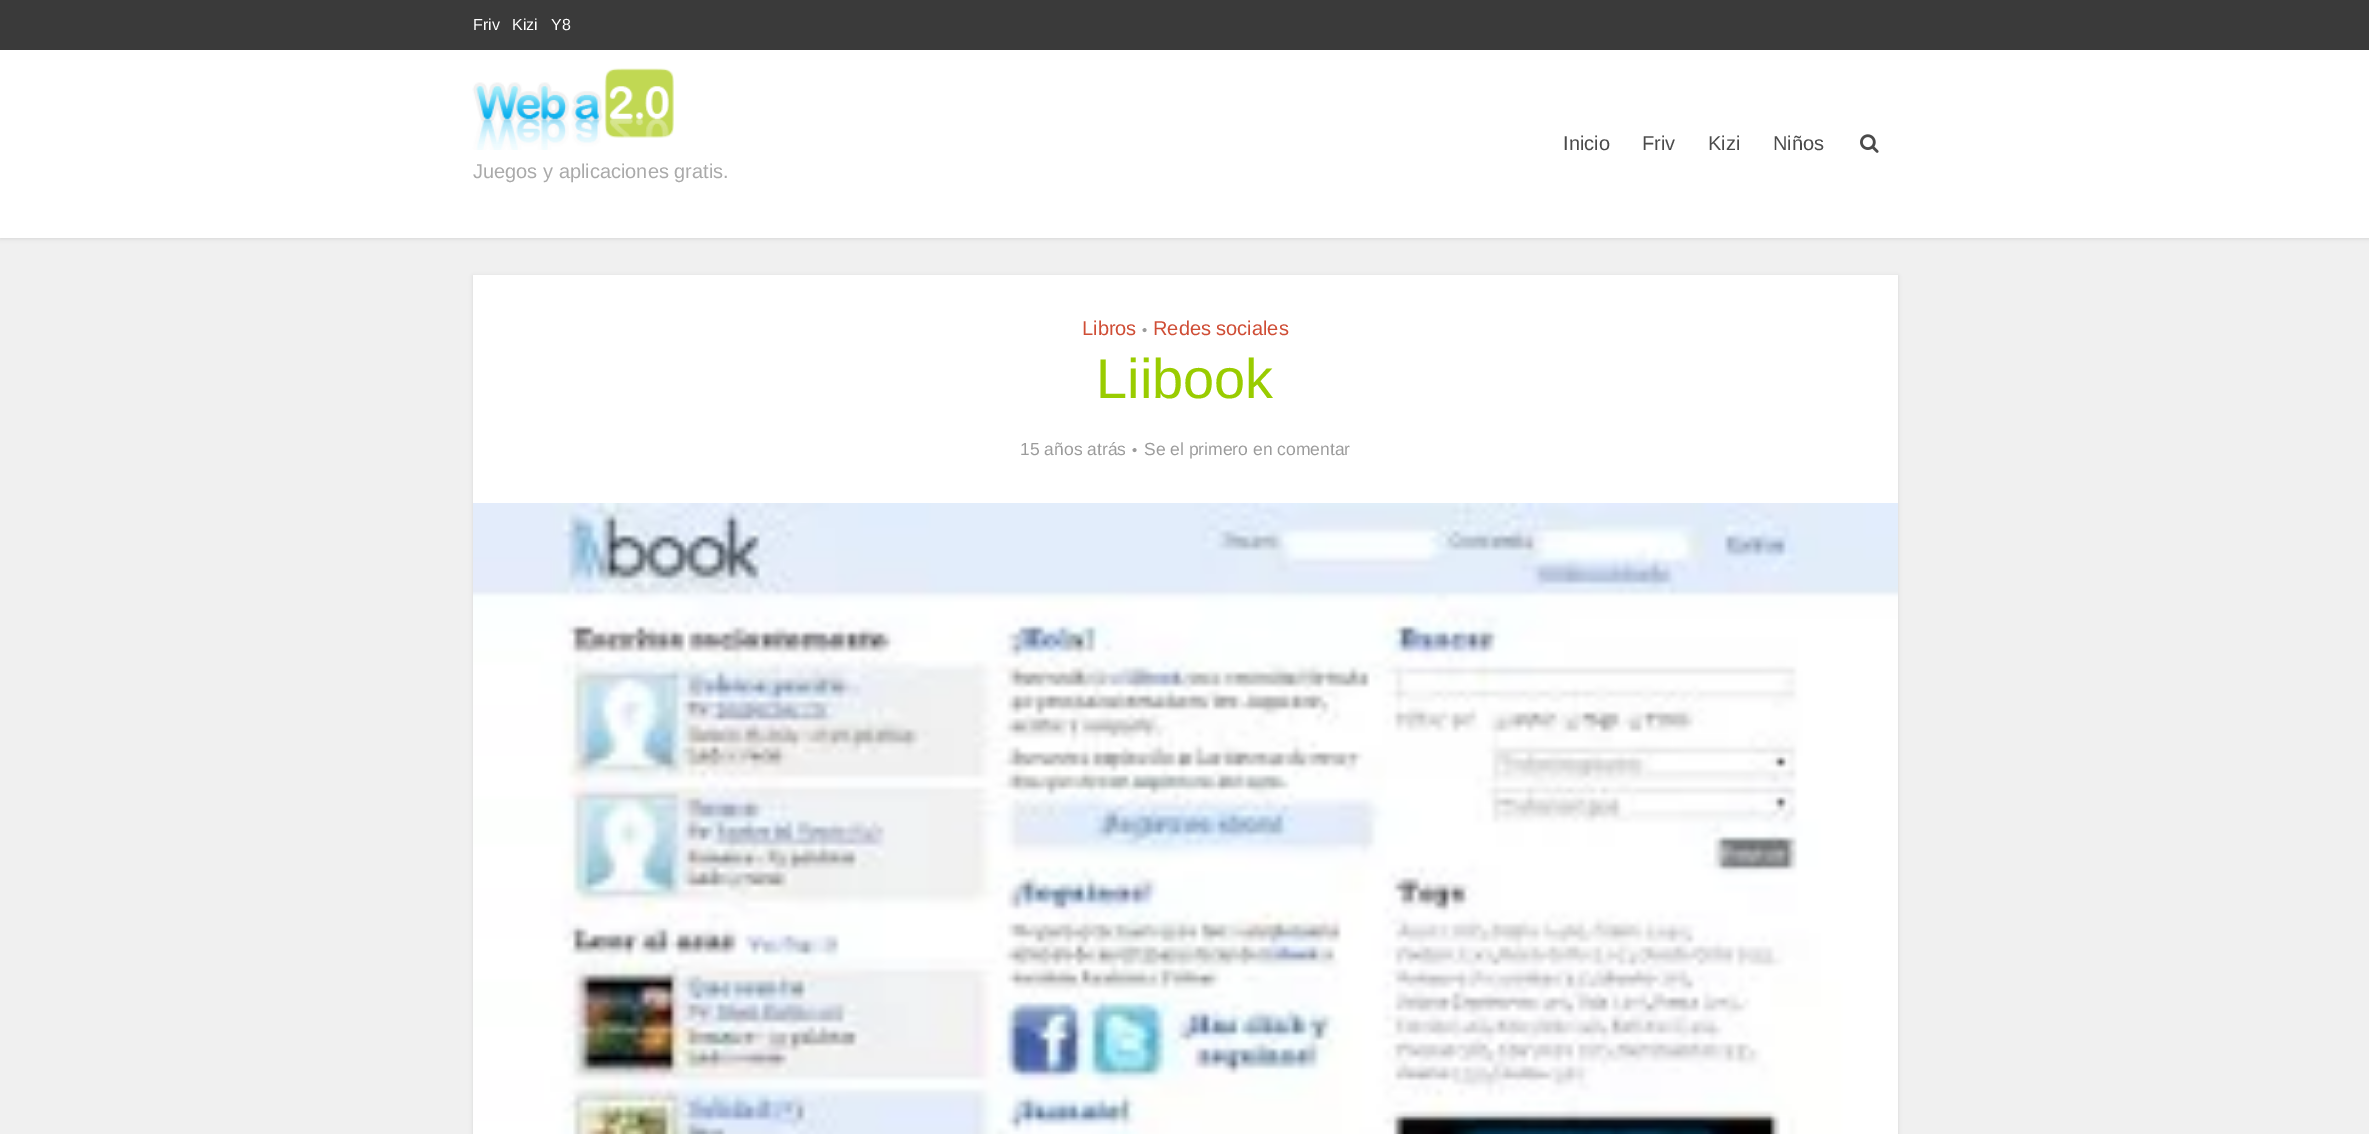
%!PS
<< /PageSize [2369 1134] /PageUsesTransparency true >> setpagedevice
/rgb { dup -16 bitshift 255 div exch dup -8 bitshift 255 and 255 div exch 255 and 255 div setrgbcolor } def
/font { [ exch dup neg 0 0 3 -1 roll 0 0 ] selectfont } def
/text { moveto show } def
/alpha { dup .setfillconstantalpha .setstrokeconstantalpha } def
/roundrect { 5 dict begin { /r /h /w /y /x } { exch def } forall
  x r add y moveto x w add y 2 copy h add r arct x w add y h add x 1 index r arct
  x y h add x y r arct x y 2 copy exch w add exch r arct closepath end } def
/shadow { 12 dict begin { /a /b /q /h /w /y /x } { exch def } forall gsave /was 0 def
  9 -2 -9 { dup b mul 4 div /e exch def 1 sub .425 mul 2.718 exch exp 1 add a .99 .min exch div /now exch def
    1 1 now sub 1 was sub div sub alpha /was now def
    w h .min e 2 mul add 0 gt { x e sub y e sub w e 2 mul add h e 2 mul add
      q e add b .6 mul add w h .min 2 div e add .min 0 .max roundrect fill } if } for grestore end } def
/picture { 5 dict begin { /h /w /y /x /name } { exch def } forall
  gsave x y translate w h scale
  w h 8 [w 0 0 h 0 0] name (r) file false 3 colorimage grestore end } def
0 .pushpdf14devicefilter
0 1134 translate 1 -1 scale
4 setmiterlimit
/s1 { /LiberationSans-Regular 16 font 16#FFFFFF rgb } def
/s2 { /LiberationSans-Regular 20 font 16#4A4A4A rgb } def
/s3 { /LiberationSans-Regular 20 font 16#AAAAAA rgb } def
/s4 { /LiberationSans-Regular 20 font 16#CF4D35 rgb } def
/s5 { /LiberationSans-Regular 15 font 16#9B9B9B rgb } def
/s6 { /LiberationSans-Regular 56 font 16#99CC00 rgb } def
/s7 { /LiberationSans-Regular 17.5 font 16#9B9B9B rgb } def
16#F0F0F0 rgb
0 0 2369 1134 rectfill
16#000000 rgb
0 1 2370 238 0 2 0.1 shadow
16#FFFFFF rgb
0 50 2369 188 rectfill
16#3A3A3A rgb
0 0 2369 50 rectfill
s1
(Friv) 473 30 text
(Kizi) 512 30 text
(Y8) 551 30 text
s2
(Inicio) 1563 150 text
(Friv) 1642 150 text
(Kizi) 1708 150 text
(Niños) 1773 150 text
(pic1.raw) 1860 134 19 19 picture
(pic2.raw) 472 68 202 82 picture
s3
(Juegos y aplicaciones gratis.) 473 178 text
16#000000 rgb
473 276 1425 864 0 2 0.1 shadow
16#FFFFFF rgb
473 275 1425 228 rectfill
s4
(Libros) 1082 335 text
s5
(•) 1142 335 text
s4
(Redes sociales) 1153 335 text
s6
(Liibook) 1096 398 text
s7
(15 años atrás) 1020 455 text
s5
(•) 1132 455 text
s7
(Se el primero en comentar) 1144 455 text
(pic3.raw) 473 503 1425 631 picture
.poppdf14devicefilter showpage
